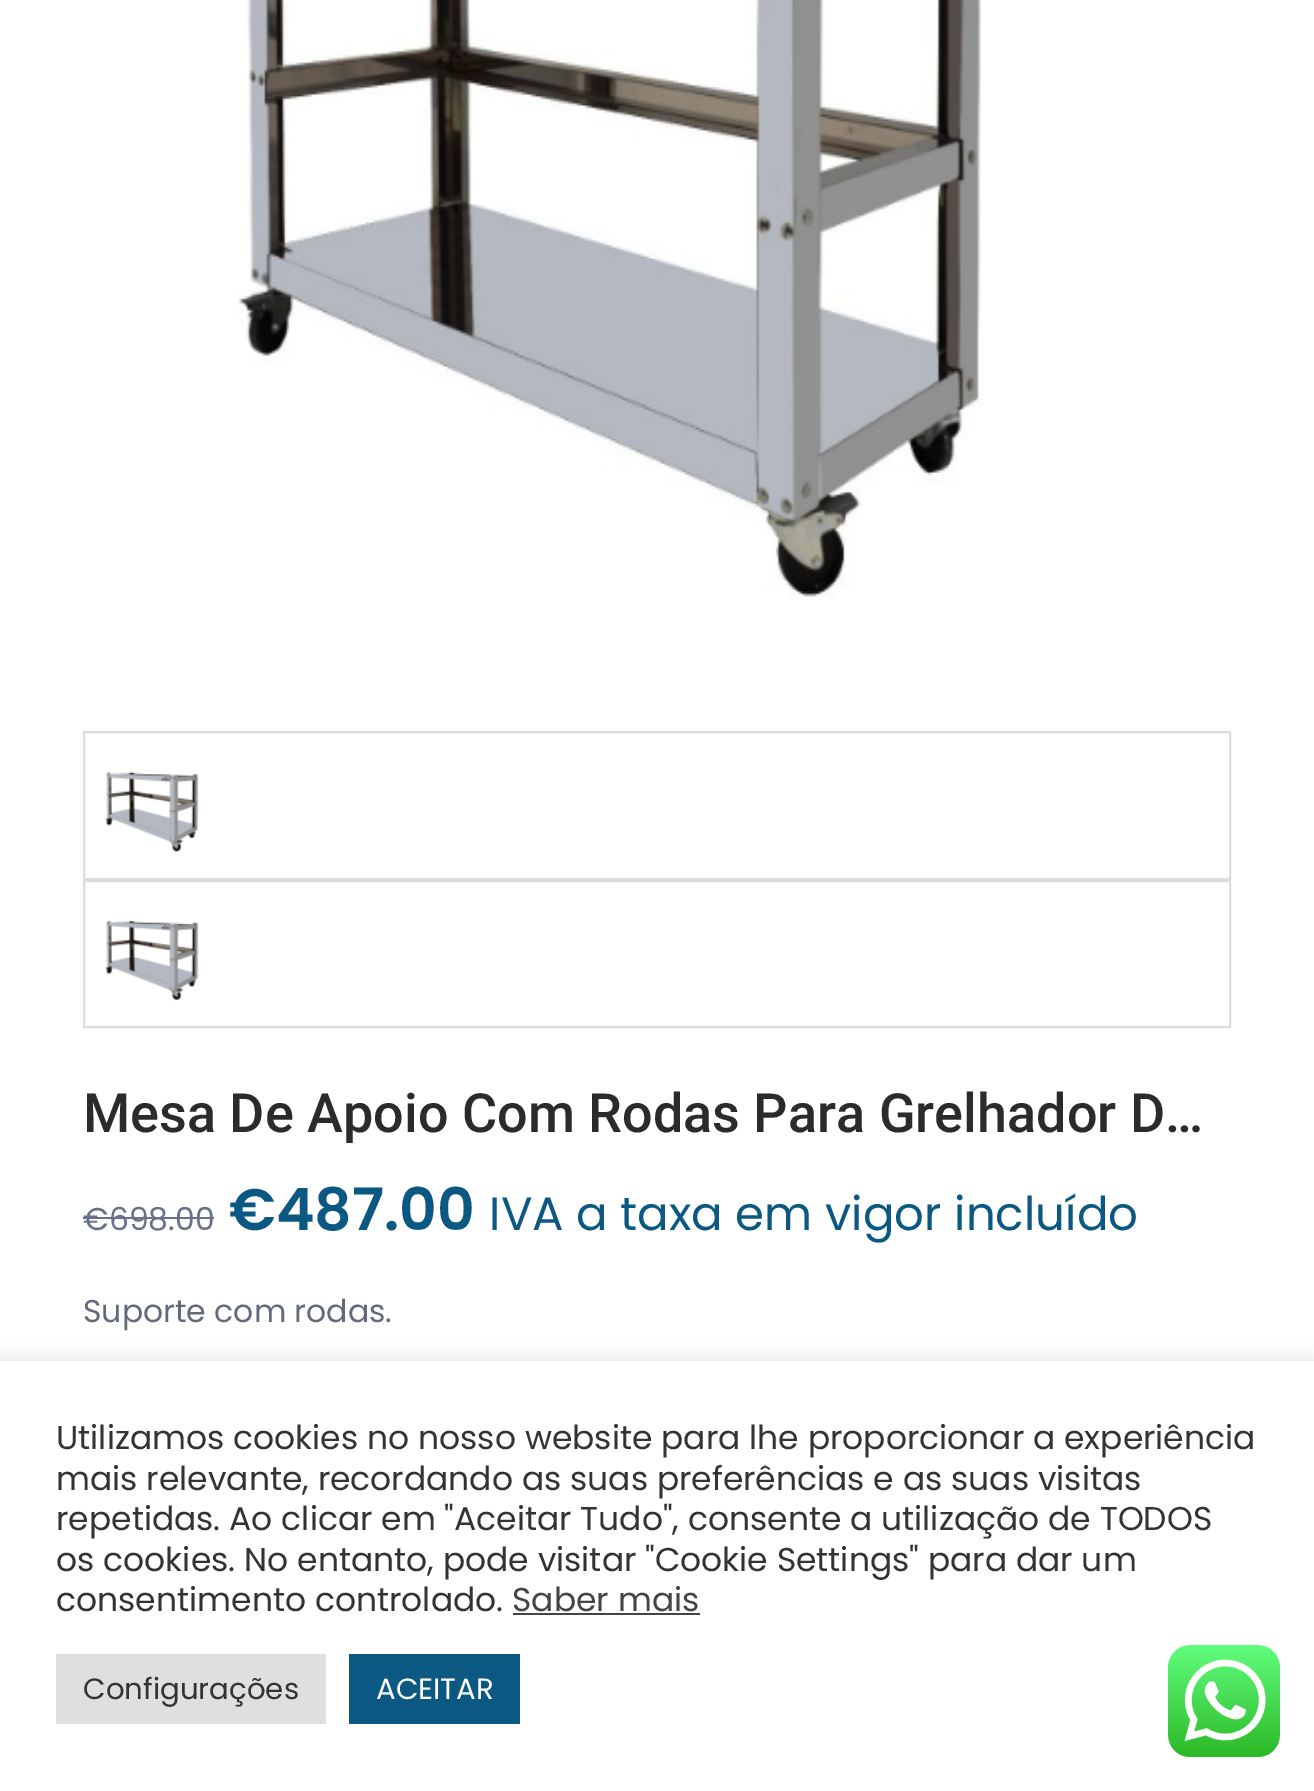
%!PS
<< /PageSize [1314 1791] /PageUsesTransparency true >> setpagedevice
/rgb { dup -16 bitshift 255 div exch dup -8 bitshift 255 and 255 div exch 255 and 255 div setrgbcolor } def
/font { [ exch dup neg 0 0 3 -1 roll 0 0 ] selectfont } def
/text { moveto show } def
/alpha { dup .setfillconstantalpha .setstrokeconstantalpha } def
/roundrect { 5 dict begin { /r /h /w /y /x } { exch def } forall
  x r add y moveto x w add y 2 copy h add r arct x w add y h add x 1 index r arct
  x y h add x y r arct x y 2 copy exch w add exch r arct closepath end } def
/shadow { 12 dict begin { /a /b /q /h /w /y /x } { exch def } forall gsave /was 0 def
  9 -2 -9 { dup b mul 4 div /e exch def 1 sub .425 mul 2.718 exch exp 1 add a .99 .min exch div /now exch def
    1 1 now sub 1 was sub div sub alpha /was now def
    w h .min e 2 mul add 0 gt { x e sub y e sub w e 2 mul add h e 2 mul add
      q e add b .6 mul add w h .min 2 div e add .min 0 .max roundrect fill } if } for grestore end } def
/picture { 5 dict begin { /h /w /y /x /name } { exch def } forall
  gsave x y translate w h scale
  w h 8 [w 0 0 h 0 0] name (r) file false 3 colorimage grestore end } def
0 .pushpdf14devicefilter
0 1791 translate 1 -1 scale
4 setmiterlimit
/s1 { /Roboto-Medium 54 font 16#292B2C rgb } def
/s2 { /Poppins-Regular 31.5 font 16#687188 rgb } def
/s3 { /Poppins-SemiBold 58.5 font 16#0B5882 rgb } def
/s4 { /Poppins-Regular 46.75 font 16#0B5882 rgb } def
/s5 { /Poppins-Regular 31.5 font 16#646A7C rgb } def
/s6 { /Poppins-Regular 33 font 16#333333 rgb } def
/s7 { /Poppins-Regular 33 font 16#444444 rgb } def
/s8 { /Poppins-Regular 29.25 font 16#333333 rgb } def
/s9 { /Poppins-Regular 29.25 font 16#FFFFFF rgb } def
16#FFFFFF rgb
0 0 1314 1791 rectfill
(pic1.raw) 238 0 744 600 picture
16#DDDDDD rgb
2 setlinewidth
84 732 1146 147 rectstroke
(pic2.raw) 105 771 94 81 picture
84 881 1146 146 rectstroke
(pic3.raw) 105 920 94 81 picture
s1
(Mesa De Apoio Com Rodas Para Grelhador D…) 83 1132 text
s2
(€698.00) 83 1230 text
83 1217 131 2 rectfill
s3
(€487.00) 229 1230 text
s4
(IVA a taxa em vigor incluído) 489 1230 text
s5
(Suporte com rodas.) 83 1322 text
16#ACABAB rgb
0 1359 1314 430 0 11 0.3 shadow
16#FFFFFF rgb
0 1361 1314 430 rectfill
s6
(Utilizamos cookies no nosso website para lhe proporcionar a experiência) 56 1449 text
(mais relevante, recordando as suas preferências e as suas visitas) 56 1490 text
(repetidas. Ao clicar em "Aceitar Tudo", consente a utilização de TODOS) 56 1530 text
(os cookies. No entanto, pode visitar "Cookie Settings" para dar um) 56 1571 text
(consentimento controlado.) 56 1611 text
s7
(Saber mais) 512 1611 text
513 1613 187 2 rectfill
16#DEDFE0 rgb
56 1654 270 70 rectfill
s8
(Configurações) 83 1699 text
16#0B5882 rgb
349 1654 171 70 rectfill
s9
(ACEITAR) 376 1699 text
(pic4.raw) 1168 1645 112 112 picture
.poppdf14devicefilter showpage
